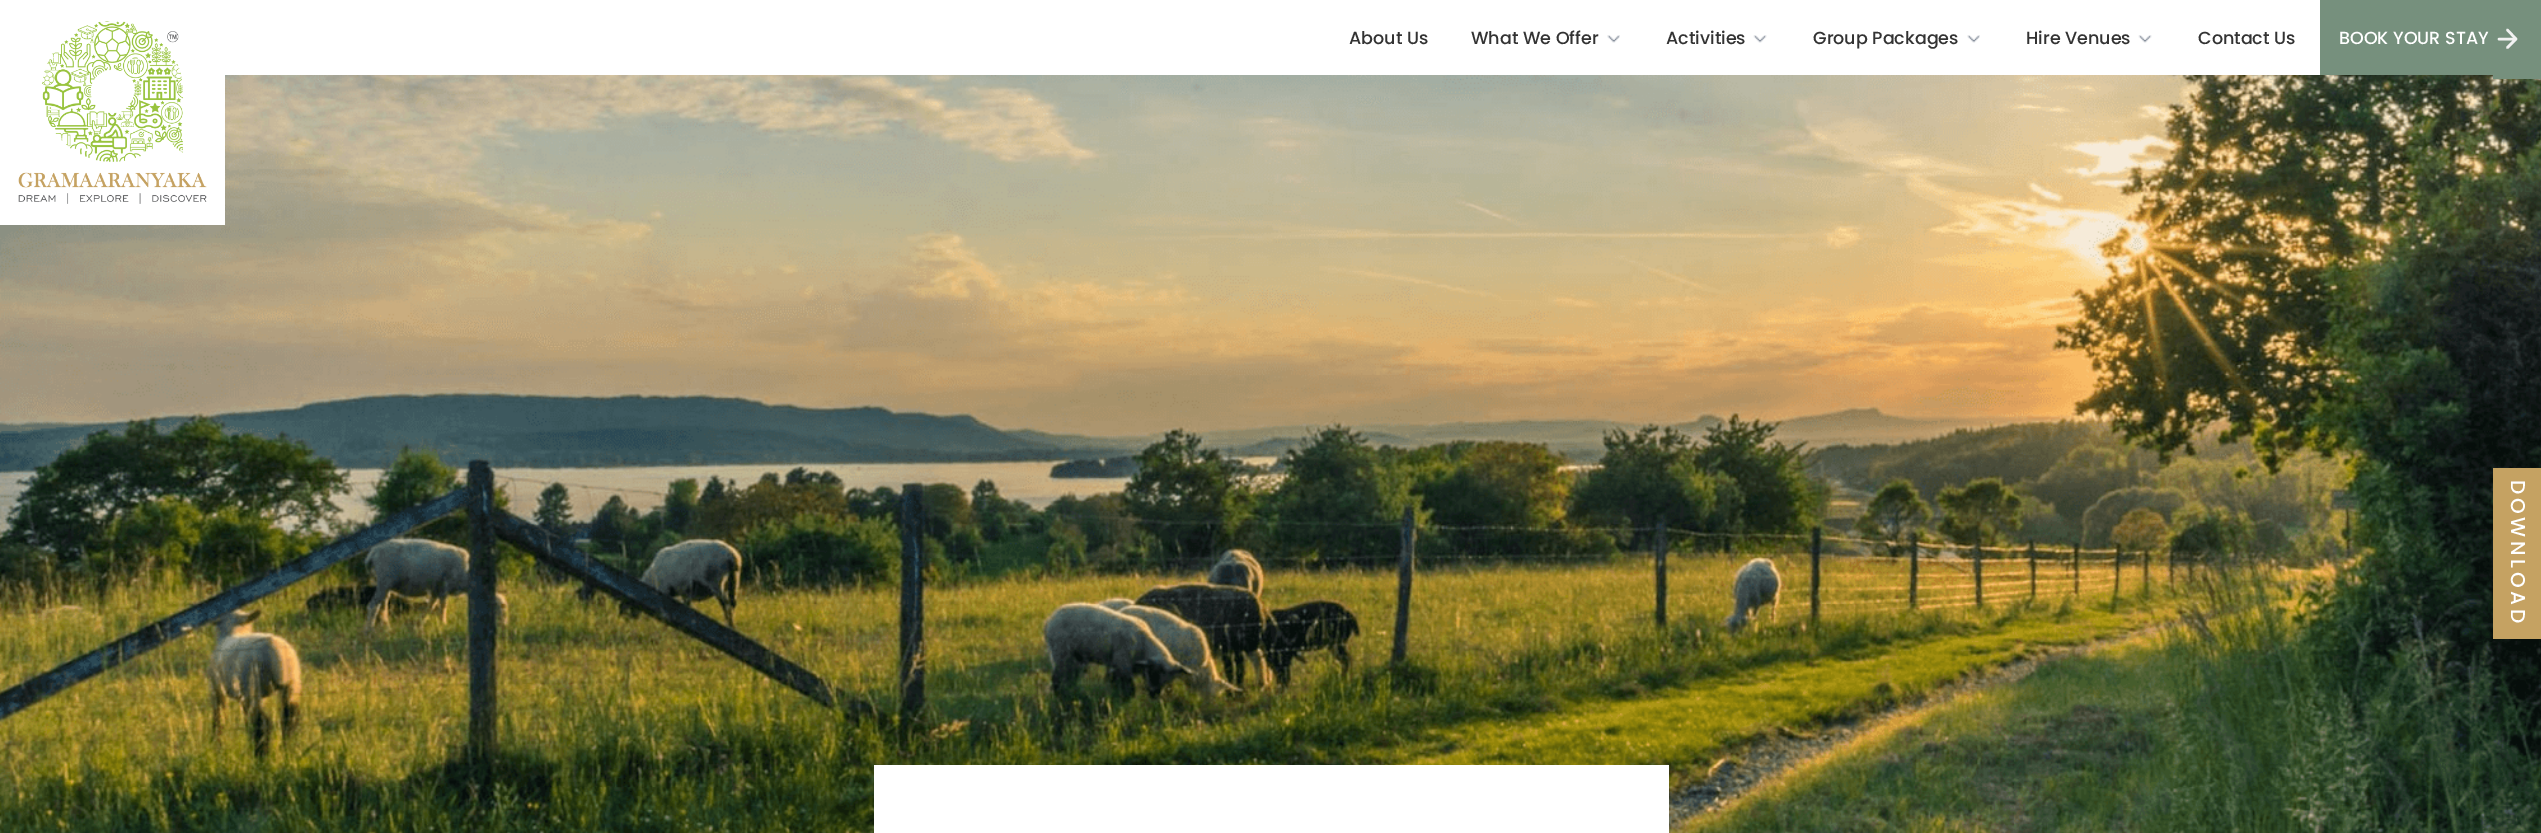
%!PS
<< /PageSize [2541 833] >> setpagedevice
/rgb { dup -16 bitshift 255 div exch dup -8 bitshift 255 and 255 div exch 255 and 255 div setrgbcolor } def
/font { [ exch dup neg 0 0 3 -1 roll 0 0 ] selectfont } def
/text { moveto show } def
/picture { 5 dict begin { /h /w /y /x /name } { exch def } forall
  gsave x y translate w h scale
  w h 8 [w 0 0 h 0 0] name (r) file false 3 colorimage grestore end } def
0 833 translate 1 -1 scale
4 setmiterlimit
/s1 { /Poppins-Medium 17.5 font 16#333333 rgb } def
/s2 { /Poppins-Medium 17.5 font 16#FFFFFF rgb } def
16#FFFFFF rgb
0 0 2541 833 rectfill
(pic6.raw) 0 75 2541 758 picture
0 75 225 150 rectfill
(pic1.raw) 18 21 189 183 picture
s1
(About Us) 1349 44 text
(What We Offer) 1471 44 text
(pic2.raw) 1607 35 13 8 picture
(Activities) 1666 44 text
(pic3.raw) 1753 35 14 8 picture
(Group Packages) 1813 44 text
(pic4.raw) 1967 35 13 8 picture
(Hire Venues) 2026 44 text
(pic5.raw) 2138 35 14 8 picture
(Contact Us) 2198 44 text
16#76907D rgb
2320 0 173 75 rectfill
s2
(BOOK YOUR STAY) 2339 44 text
16#76907D rgb
2493 0 48 79 rectfill
16#F2F2F2 rgb
2.5 setlinewidth
1 setlinecap
1 setlinejoin
2499 39 moveto 2516 39 lineto 2507.5 30 moveto 2516 39 lineto 2507.5 47.5 lineto stroke
16#FFFFFF rgb
874 765 795 68 rectfill
16#C5A262 rgb
2493 468 48 171 rectfill
/Poppins-Medium 20 font
16#FFFFFF rgb
gsave 2511 480 translate 90 rotate 0 0 moveto 3.75 0 (DOWNLOAD) ashow grestore
showpage
